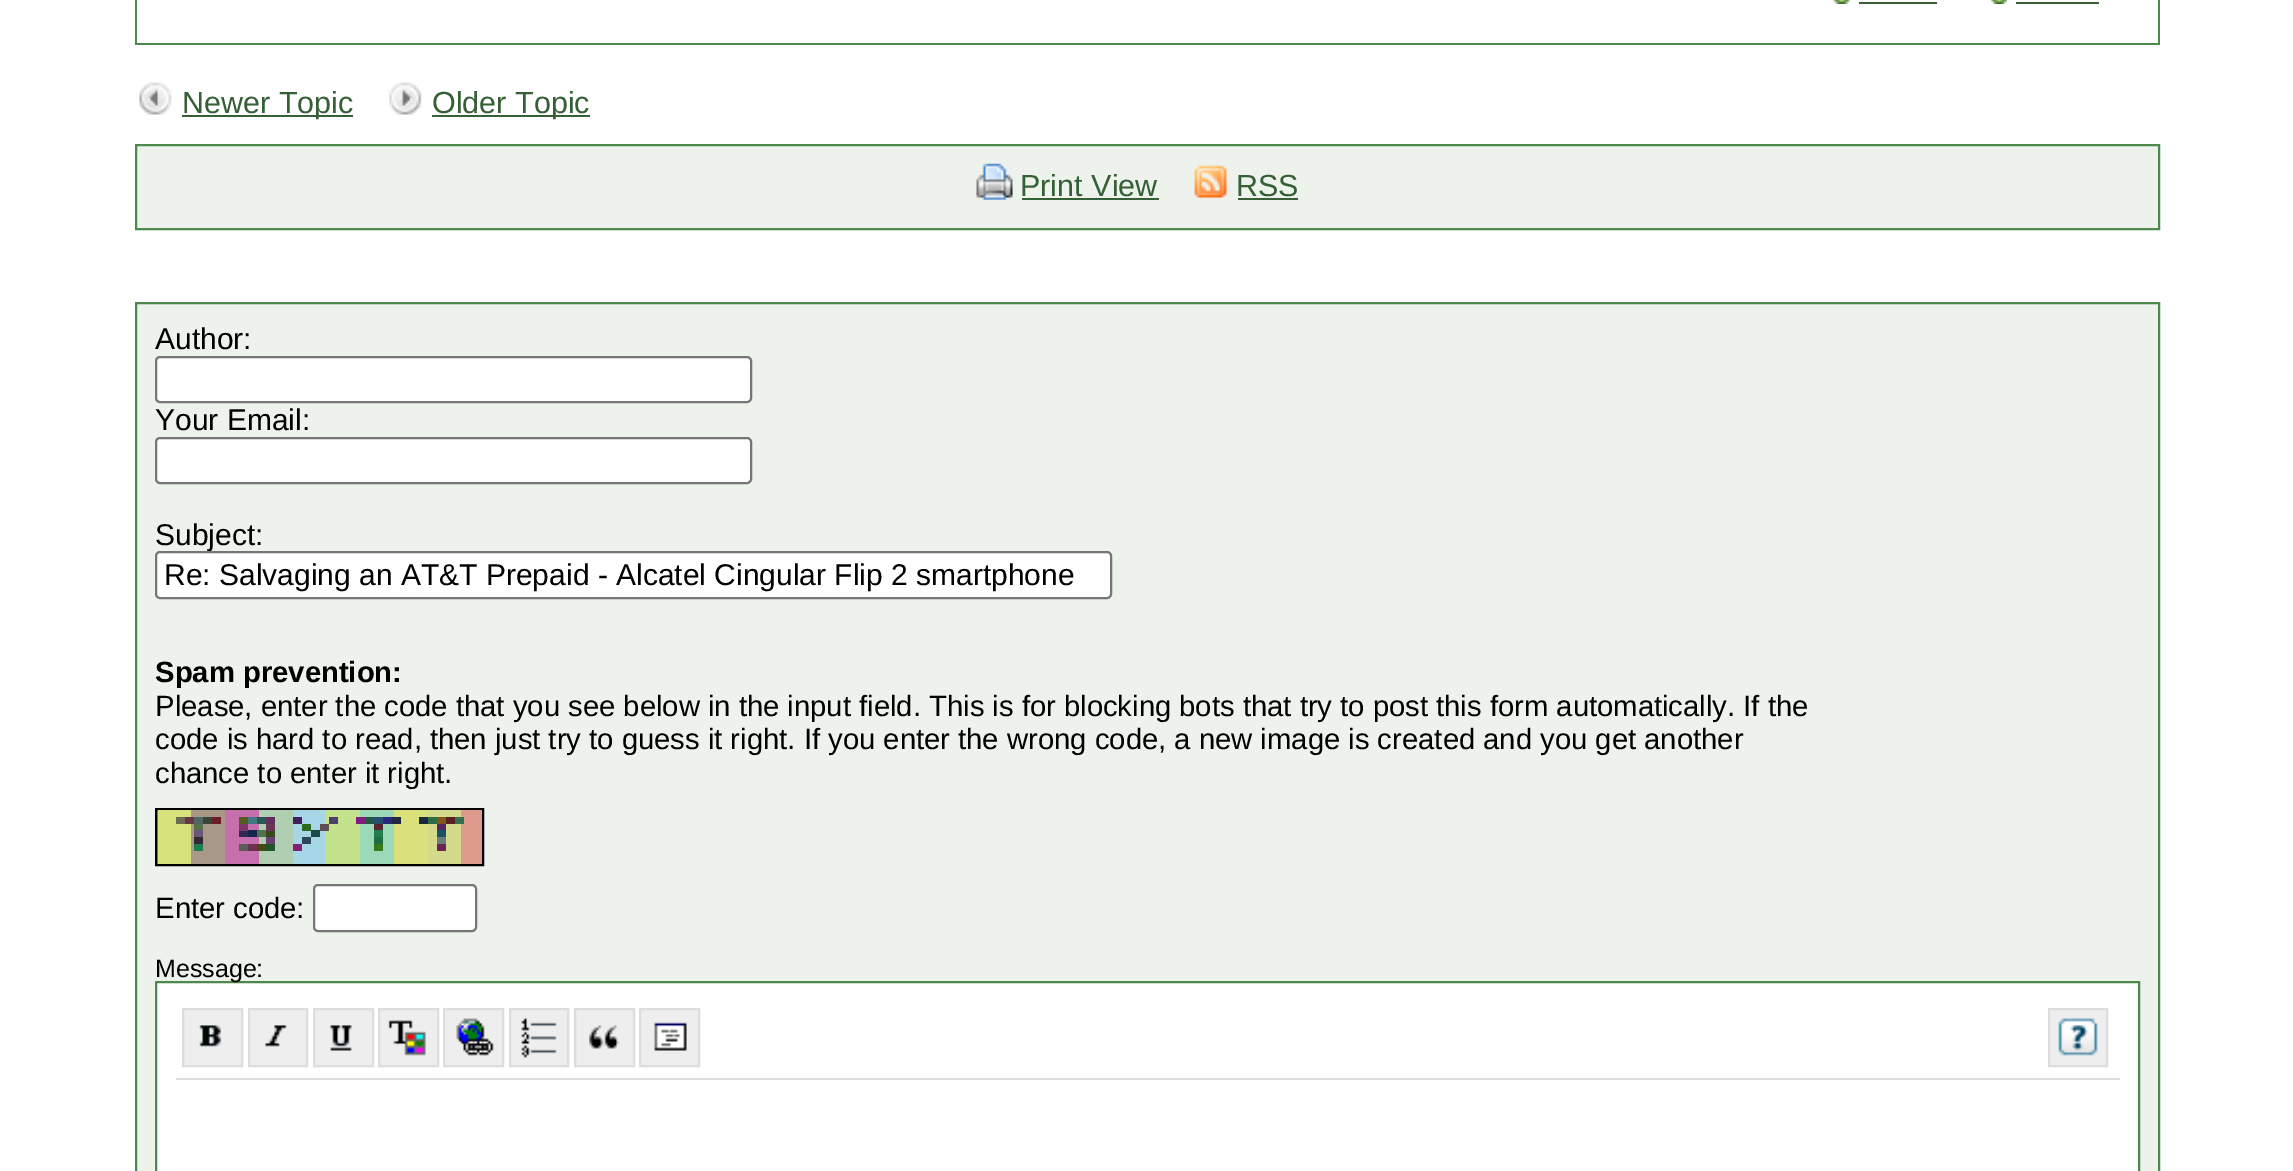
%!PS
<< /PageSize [2293 1171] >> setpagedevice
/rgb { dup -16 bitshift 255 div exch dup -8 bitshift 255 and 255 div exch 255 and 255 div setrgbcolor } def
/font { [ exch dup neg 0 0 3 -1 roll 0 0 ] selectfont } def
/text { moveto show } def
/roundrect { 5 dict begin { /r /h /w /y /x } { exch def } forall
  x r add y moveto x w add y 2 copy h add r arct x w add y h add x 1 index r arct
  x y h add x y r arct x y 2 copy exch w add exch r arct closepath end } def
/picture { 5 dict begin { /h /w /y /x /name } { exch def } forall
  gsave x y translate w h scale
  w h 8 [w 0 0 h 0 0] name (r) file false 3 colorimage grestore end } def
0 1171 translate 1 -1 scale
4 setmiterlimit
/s1 { /LiberationSans-Regular 30.5 font 16#355F35 rgb } def
/s2 { /LiberationSans-Regular 30 font 16#000000 rgb } def
/s3 { /LiberationSans-Bold 29.25 font 16#000000 rgb } def
/s4 { /LiberationSans-Regular 29.25 font 16#000000 rgb } def
/s5 { /LiberationSans-Regular 25 font 16#000000 rgb } def
16#FFFFFF rgb
0 0 2293 1171 rectfill
16#4D894D rgb
2158 0 2 45 rectfill
135 43 2025 2 rectfill
135 0 2 45 rectfill
(pic1.raw) 1833 0 17 4 picture
16#355F35 rgb
1859 2 78 2 rectfill
(pic2.raw) 1990 0 17 4 picture
2016 2 83 2 rectfill
(pic3.raw) 139 82 33 33 picture
182 115 171 2 rectfill
s1
(Newer Topic) 182 113 text
(pic4.raw) 388 82 34 33 picture
432 115 158 2 rectfill
(Older Topic) 432 113 text
16#EDF2ED rgb
136 145 moveto 2159 145 lineto 2159 229 lineto 136 229 lineto closepath gsave fill grestore
16#4D894D rgb
2 setlinewidth
stroke
(pic5.raw) 976 163 37 37 picture
s1
(Print View) 1020 196 text
1022 198 137 2 rectfill
(pic6.raw) 1194 165 33 34 picture
(RSS) 1236 196 text
1238 198 60 2 rectfill
16#EDF2ED rgb
136 303 moveto 2159 303 lineto 2159 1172 lineto 136 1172 lineto closepath gsave fill grestore
16#4D894D rgb
stroke
s2
(Author:) 155 349 text
16#FFFFFF rgb
156 357 595 45 4 roundrect gsave fill grestore
16#767676 rgb
stroke
s2
(Your Email:) 155 430 text
16#FFFFFF rgb
156 438 595 45 4 roundrect gsave fill grestore
16#767676 rgb
stroke
s2
(Subject:) 155 545 text
16#FFFFFF rgb
156 552 955 46 4 roundrect gsave fill grestore
16#767676 rgb
stroke
s2
(Re: Salvaging an AT&T Prepaid - Alcatel Cingular Flip 2 smartphone) 164 585 text
s3
(Spam prevention:) 155 682 text
s4
(Please, enter the code that you see below in the input field. This is for blocking bots that try to post this form automatically. If the) 155 716 text
(code is hard to read, then just try to guess it right. If you enter the wrong code, a new image is created and you get another) 155 749 text
(chance to enter it right.) 155 783 text
16#979BB5 rgb
157 810 1 54 rectfill
16#000000 rgb
156 809 327 56 rectstroke
16#D8E27D rgb
158 810 33 54 rectfill
16#A79887 rgb
191 810 34 54 rectfill
16#C570AD rgb
225 810 34 54 rectfill
16#B0CEB1 rgb
259 810 34 54 rectfill
16#A7D6E6 rgb
293 810 33 54 rectfill
16#C3E28B rgb
326 810 34 54 rectfill
16#9CD9B9 rgb
360 810 34 54 rectfill
16#DAE17A rgb
394 810 34 54 rectfill
16#D4DA8B rgb
428 810 33 54 rectfill
16#DE9A8D rgb
461 810 21 54 rectfill
16#6B6C53 rgb
176 817 9 7 rectfill
16#663745 rgb
185 817 9 7 rectfill
16#526761 rgb
194 817 9 7 rectfill
16#394537 rgb
203 817 9 7 rectfill
16#6A1C2A rgb
212 817 9 7 rectfill
16#545F1F rgb
239 817 9 7 rectfill
16#427882 rgb
248 817 9 7 rectfill
16#285854 rgb
257 817 9 7 rectfill
16#612F5E rgb
266 817 9 7 rectfill
16#401F5C rgb
293 817 9 7 rectfill
16#4D406B rgb
329 817 9 7 rectfill
16#811C7F rgb
356 817 9 7 rectfill
16#1F5844 rgb
365 817 9 7 rectfill
16#284E70 rgb
374 817 9 7 rectfill
16#29277E rgb
383 817 9 7 rectfill
16#232845 rgb
392 817 9 7 rectfill
16#19283D rgb
419 817 9 7 rectfill
16#2E6D44 rgb
428 817 9 7 rectfill
16#81581A rgb
437 817 9 7 rectfill
16#5A2225 rgb
446 817 9 7 rectfill
16#38704F rgb
455 817 9 7 rectfill
16#56714B rgb
194 824 9 6 rectfill
16#79376C rgb
239 824 9 7 rectfill
16#683557 rgb
266 824 9 7 rectfill
16#2D6A1E rgb
302 824 9 7 rectfill
16#605056 rgb
320 824 9 7 rectfill
16#552531 rgb
374 824 9 6 rectfill
16#542761 rgb
437 824 9 6 rectfill
16#6C5677 rgb
194 830 9 7 rectfill
16#2D2B53 rgb
239 831 9 6 rectfill
16#16254D rgb
248 830 9 7 rectfill
16#52724C rgb
257 830 9 7 rectfill
16#39471D rgb
266 831 9 6 rectfill
16#194C48 rgb
311 830 9 7 rectfill
16#207D4F rgb
374 830 9 7 rectfill
16#195165 rgb
437 830 9 7 rectfill
16#322A32 rgb
194 837 9 7 rectfill
16#67406F rgb
266 837 9 7 rectfill
16#2D4658 rgb
302 837 9 7 rectfill
16#1C703F rgb
374 837 9 7 rectfill
16#6C7D79 rgb
437 837 9 7 rectfill
16#1E7D50 rgb
194 844 9 7 rectfill
16#595E58 rgb
239 844 9 7 rectfill
16#712F51 rgb
248 844 9 7 rectfill
16#4A4815 rgb
257 844 9 7 rectfill
16#215727 rgb
266 844 9 7 rectfill
16#812174 rgb
293 844 9 7 rectfill
16#36791B rgb
374 844 9 7 rectfill
16#6A2555 rgb
437 844 9 7 rectfill
s4
(Enter code:) 155 918 text
16#FFFFFF rgb
314 885 162 46 4 roundrect gsave fill grestore
16#767676 rgb
stroke
16#FFFFFF rgb
156 982 moveto 2139 982 lineto 2139 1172 lineto 156 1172 lineto closepath gsave fill grestore
16#4D894D rgb
stroke
s5
(Message:) 155 977 text
16#DDDDDD rgb
176 1078 1944 2 rectfill
16#EEEEEE rgb
183 1009 moveto 242 1009 lineto 242 1066 lineto 183 1066 lineto closepath gsave fill grestore
16#DDDDDD rgb
stroke
16#EEEEEE rgb
249 1009 moveto 307 1009 lineto 307 1066 lineto 249 1066 lineto closepath gsave fill grestore
16#DDDDDD rgb
stroke
16#EEEEEE rgb
314 1009 moveto 373 1009 lineto 373 1066 lineto 314 1066 lineto closepath gsave fill grestore
16#DDDDDD rgb
stroke
16#EEEEEE rgb
379 1009 moveto 438 1009 lineto 438 1066 lineto 379 1066 lineto closepath gsave fill grestore
16#DDDDDD rgb
stroke
16#EEEEEE rgb
444 1009 moveto 503 1009 lineto 503 1066 lineto 444 1066 lineto closepath gsave fill grestore
16#DDDDDD rgb
stroke
16#EEEEEE rgb
510 1009 moveto 568 1009 lineto 568 1066 lineto 510 1066 lineto closepath gsave fill grestore
16#DDDDDD rgb
stroke
16#EEEEEE rgb
575 1009 moveto 634 1009 lineto 634 1066 lineto 575 1066 lineto closepath gsave fill grestore
16#DDDDDD rgb
stroke
16#EEEEEE rgb
640 1009 moveto 699 1009 lineto 699 1066 lineto 640 1066 lineto closepath gsave fill grestore
16#DDDDDD rgb
stroke
16#EEEEEE rgb
2049 1009 moveto 2107 1009 lineto 2107 1066 lineto 2049 1066 lineto closepath gsave fill grestore
16#DDDDDD rgb
stroke
(pic7.raw) 2058 1018 40 38 picture
(pic8.raw) 199 1025 23 22 picture
(pic9.raw) 265 1025 22 22 picture
(pic10.raw) 330 1025 22 26 picture
(pic11.raw) 388 1020 38 36 picture
(pic12.raw) 456 1018 38 38 picture
(pic13.raw) 521 1018 36 40 picture
(pic14.raw) 589 1025 31 24 picture
(pic15.raw) 654 1022 33 29 picture
showpage
